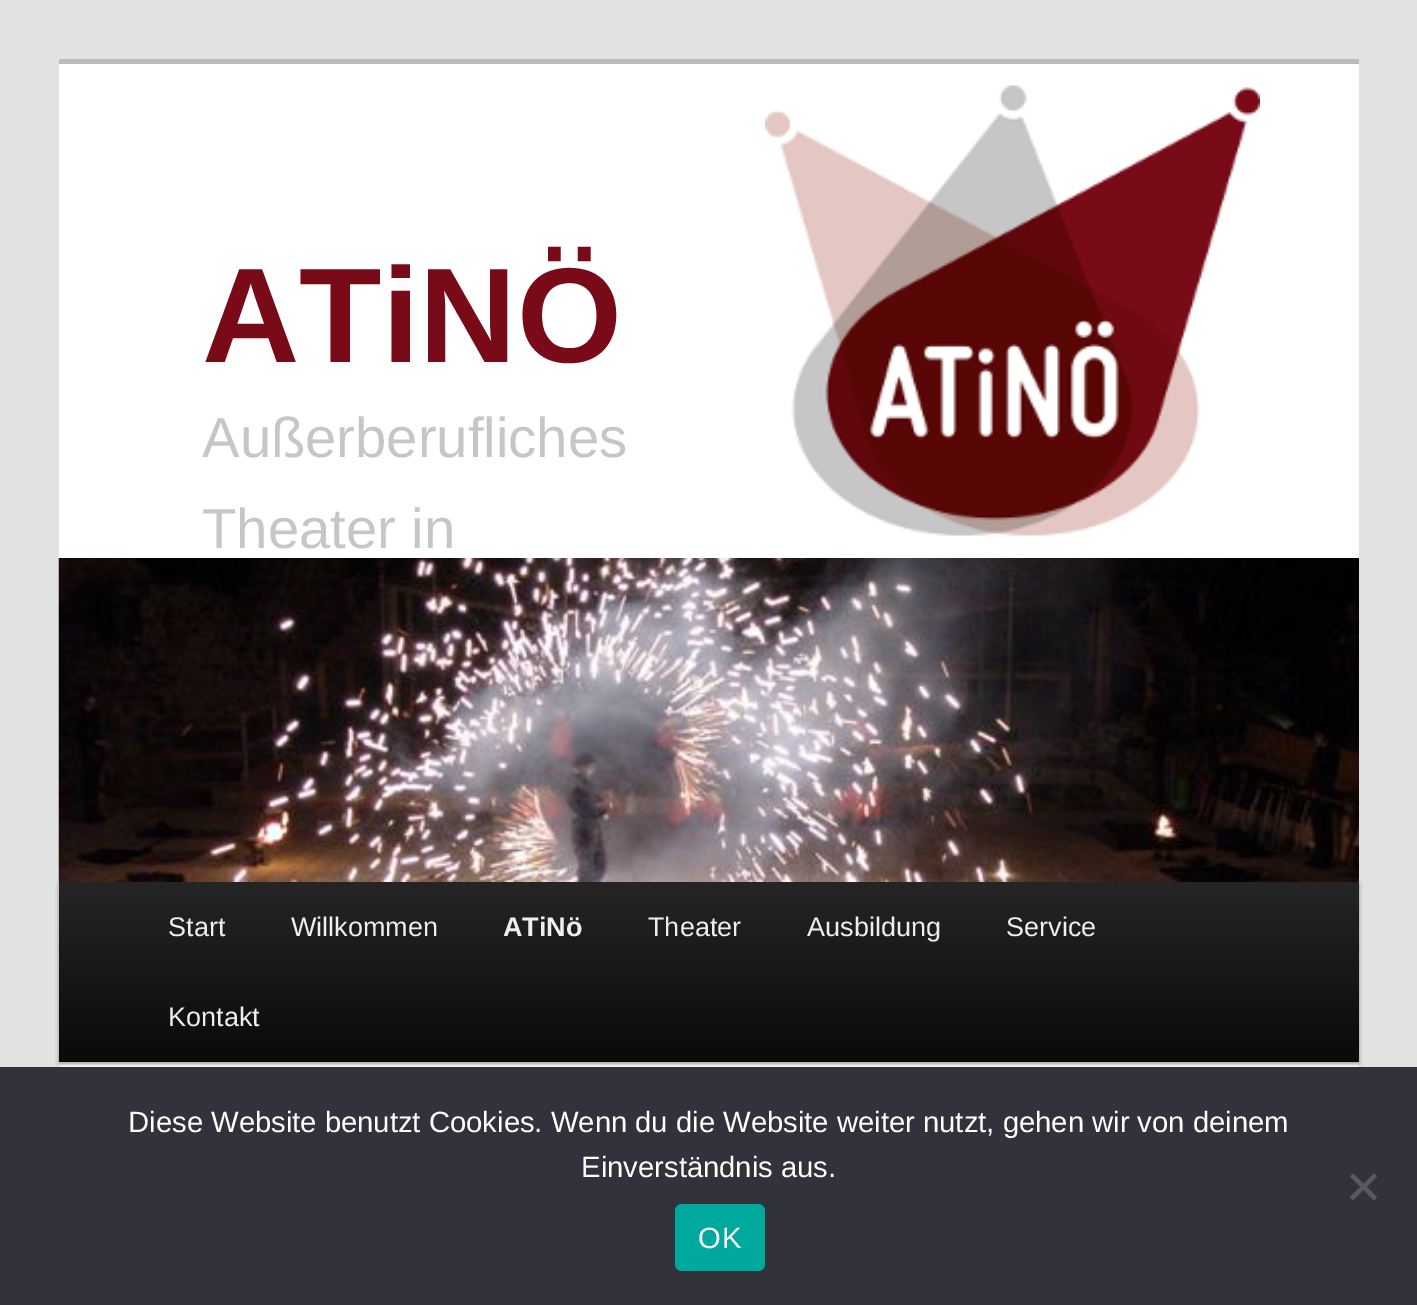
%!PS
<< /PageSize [1417 1305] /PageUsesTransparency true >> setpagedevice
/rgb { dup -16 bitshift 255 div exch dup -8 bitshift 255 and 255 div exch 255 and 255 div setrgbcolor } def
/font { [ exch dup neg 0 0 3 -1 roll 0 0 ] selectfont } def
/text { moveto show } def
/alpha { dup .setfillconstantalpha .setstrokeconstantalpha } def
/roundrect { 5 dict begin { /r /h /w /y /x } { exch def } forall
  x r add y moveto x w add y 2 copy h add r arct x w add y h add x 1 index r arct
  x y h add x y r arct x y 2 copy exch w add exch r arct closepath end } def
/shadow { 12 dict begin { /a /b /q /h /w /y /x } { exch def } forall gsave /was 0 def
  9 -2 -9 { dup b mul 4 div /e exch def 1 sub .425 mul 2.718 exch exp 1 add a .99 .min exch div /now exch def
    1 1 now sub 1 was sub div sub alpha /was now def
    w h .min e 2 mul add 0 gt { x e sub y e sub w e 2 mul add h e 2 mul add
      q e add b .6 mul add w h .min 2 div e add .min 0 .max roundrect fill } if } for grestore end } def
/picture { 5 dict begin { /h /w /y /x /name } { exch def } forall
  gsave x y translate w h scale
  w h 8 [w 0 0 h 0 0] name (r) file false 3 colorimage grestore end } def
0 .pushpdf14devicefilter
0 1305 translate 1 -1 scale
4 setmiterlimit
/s1 { /LiberationSans-Bold 135 font 16#790B18 rgb } def
/s2 { /LiberationSans-Regular 56.25 font 16#C6C6C6 rgb } def
/s3 { /LiberationSans-Regular 27 font 16#EEEEEE rgb } def
/s4 { /LiberationSans-Bold 27 font 16#EEEEEE rgb } def
/s5 { /LiberationSans-Regular 29.25 font 16#FFFFFF rgb } def
16#E2E2E2 rgb
0 0 1417 1305 rectfill
16#FFFFFF rgb
59 64 1300 1003 rectfill
16#BBBBBB rgb
59 59 1300 5 rectfill
(pic1.raw) 765 85 495 451 picture
s1
(ATiNÖ) 202 362 text
s2
(Außerberufliches) 202 457 text
(Theater in) 202 548 text
16#000000 rgb
59 884 1300 180 0 2 0.4 shadow
(pic2.raw) 58 558 1301 324 picture
gsave 59 882 moveto 1359 882 lineto 1359 1062 lineto 59 1062 lineto closepath clip newpath
<< /ShadingType 2 /ColorSpace /DeviceRGB /Coords [709 882 709 1062] /Extend [true true] /Function << /FunctionType 2 /Domain [0 1] /C0 [0.145 0.145 0.145] /C1 [0.039 0.039 0.039] /N 1 >> >> shfill grestore
s3
(Start) 168 936 text
(Willkommen) 291 936 text
s4
(ATiNö) 503 936 text
s3
(Theater) 648 936 text
(Ausbildung) 807 936 text
(Service) 1006 936 text
(Kontakt) 168 1026 text
16#32323A rgb
0 1067 1417 238 rectfill
s5
(Diese Website benutzt Cookies. Wenn du die Website weiter nutzt, gehen wir von deinem) 128 1132 text
(Einverständnis aus.) 581 1177 text
16#59595D rgb
1374 1173.5 moveto 1377 1176.5 lineto 1353 1200.5 lineto 1350 1197 lineto closepath fill
1350 1176.5 moveto 1353 1173.5 lineto 1377 1197 lineto 1374 1200.5 lineto closepath fill
16#00A99D rgb
675 1204 90 67 7 roundrect fill
16#FFFFFF rgb
698 1248 moveto 1 0 (OK) ashow
.poppdf14devicefilter showpage
